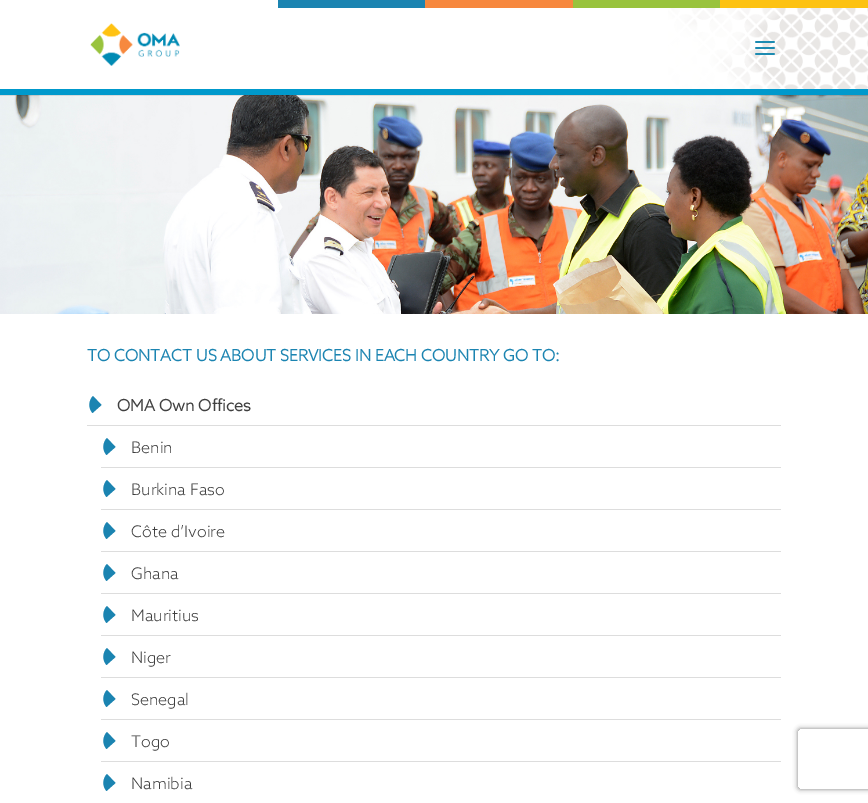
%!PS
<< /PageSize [868 803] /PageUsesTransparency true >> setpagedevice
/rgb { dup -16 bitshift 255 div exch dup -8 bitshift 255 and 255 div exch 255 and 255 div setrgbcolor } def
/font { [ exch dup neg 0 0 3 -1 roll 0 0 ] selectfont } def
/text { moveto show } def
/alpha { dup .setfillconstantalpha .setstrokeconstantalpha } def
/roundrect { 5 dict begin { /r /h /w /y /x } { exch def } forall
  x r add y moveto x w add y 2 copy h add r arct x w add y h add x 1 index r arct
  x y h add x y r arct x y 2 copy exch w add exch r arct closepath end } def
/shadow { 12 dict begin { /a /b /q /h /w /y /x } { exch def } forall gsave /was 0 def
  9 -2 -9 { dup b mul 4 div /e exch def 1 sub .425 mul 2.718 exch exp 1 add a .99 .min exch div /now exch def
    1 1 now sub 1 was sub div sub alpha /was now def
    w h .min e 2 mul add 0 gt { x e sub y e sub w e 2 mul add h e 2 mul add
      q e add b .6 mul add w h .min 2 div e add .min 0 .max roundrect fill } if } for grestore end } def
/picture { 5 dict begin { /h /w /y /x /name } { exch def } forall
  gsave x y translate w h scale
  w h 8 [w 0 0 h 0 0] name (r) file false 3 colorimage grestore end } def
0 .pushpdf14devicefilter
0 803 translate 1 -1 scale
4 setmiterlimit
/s1 { /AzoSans-Bold 16 font 16#1B84B1 rgb } def
/s2 { /AzoSans-Bold 16 font 16#404040 rgb } def
/s3 { /AzoSans-Light 16 font 16#404040 rgb } def
16#FFFFFF rgb
0 0 868 803 rectfill
(pic4.raw) 0 95 868 219 picture
0.1 alpha
16#000000 rgb
0 95 868 1 rectfill
1 alpha
(pic1.raw) 668 8 200 81 picture
16#0099CC rgb
0 89 868 6 rectfill
16#1B84B1 rgb
278 0 147 8 rectfill
16#F7883E rgb
425 0 148 8 rectfill
16#99C33D rgb
573 0 147 8 rectfill
16#FDC212 rgb
720 0 148 8 rectfill
(pic2.raw) 90 23 90 43 picture
(pic3.raw) 755 41 20 14 picture
s1
(TO CONTACT US ABOUT SERVICES IN EACH COUNTRY GO TO:) 87 361 text
16#DDDDDD rgb
87 425 694 1 rectfill
16#1B84B1 rgb
101.5 405 moveto 92.5 413 lineto 88 408 88.5 400.5 93 396 curveto closepath fill
s2
(OMA Own Offices) 117 411 text
16#DDDDDD rgb
101 467 680 1 rectfill
16#1B84B1 rgb
115.5 447 moveto 106.5 455 lineto 102 450 102.5 442.5 107 438 curveto closepath fill
s3
(Benin) 131 453 text
16#DDDDDD rgb
101 509 680 1 rectfill
16#1B84B1 rgb
115.5 489 moveto 106.5 497 lineto 102 492 102.5 484.5 107 480 curveto closepath fill
s3
(Burkina Faso) 131 495 text
16#DDDDDD rgb
101 551 680 1 rectfill
16#1B84B1 rgb
115.5 531 moveto 106.5 539 lineto 102 534 102.5 526.5 107 522 curveto closepath fill
s3
(Côte d’Ivoire) 131 537 text
16#DDDDDD rgb
101 593 680 1 rectfill
16#1B84B1 rgb
115.5 573 moveto 106.5 581 lineto 102 576 102.5 568.5 107 564 curveto closepath fill
s3
(Ghana) 131 579 text
16#DDDDDD rgb
101 635 680 1 rectfill
16#1B84B1 rgb
115.5 615 moveto 106.5 623 lineto 102 618 102.5 610.5 107 606 curveto closepath fill
s3
(Mauritius) 131 621 text
16#DDDDDD rgb
101 677 680 1 rectfill
16#1B84B1 rgb
115.5 657 moveto 106.5 665 lineto 102 660 102.5 652.5 107 648 curveto closepath fill
s3
(Niger) 131 663 text
16#DDDDDD rgb
101 719 680 1 rectfill
16#1B84B1 rgb
115.5 699 moveto 106.5 707 lineto 102 702 102.5 694.5 107 690 curveto closepath fill
s3
(Senegal) 131 705 text
16#DDDDDD rgb
101 761 680 1 rectfill
16#1B84B1 rgb
115.5 741 moveto 106.5 749 lineto 102 744 102.5 736.5 107 732 curveto closepath fill
s3
(Togo) 131 747 text
16#1B84B1 rgb
115.5 783 moveto 106.5 791 lineto 102 786 102.5 778.5 107 774 curveto closepath fill
s3
(Namibia) 131 789 text
gsave
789 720 moveto 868 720 lineto 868 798 lineto 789 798 lineto closepath 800 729 moveto 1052 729 lineto 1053 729 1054 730 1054 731 curveto 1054 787 lineto 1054 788 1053 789 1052 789 curveto 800 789 lineto 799 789 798 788 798 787 curveto 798 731 lineto 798 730 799 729 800 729 curveto closepath eoclip newpath
16#808080 rgb
798 729 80 60 2 2.5 1 shadow
grestore
.poppdf14devicefilter showpage
